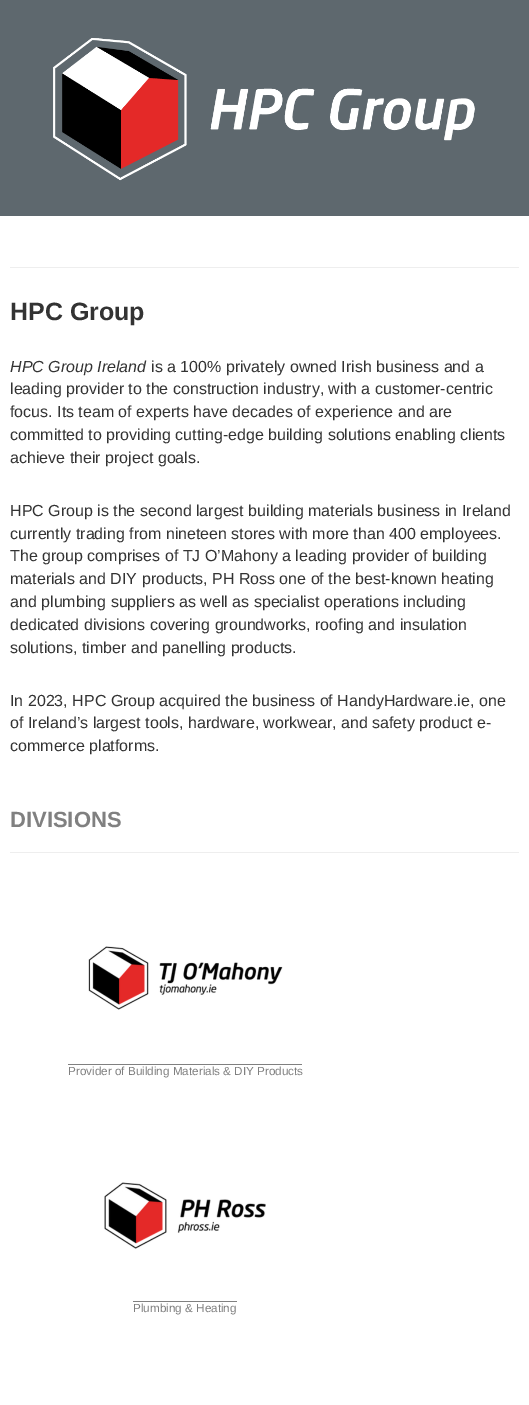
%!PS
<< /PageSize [529 1405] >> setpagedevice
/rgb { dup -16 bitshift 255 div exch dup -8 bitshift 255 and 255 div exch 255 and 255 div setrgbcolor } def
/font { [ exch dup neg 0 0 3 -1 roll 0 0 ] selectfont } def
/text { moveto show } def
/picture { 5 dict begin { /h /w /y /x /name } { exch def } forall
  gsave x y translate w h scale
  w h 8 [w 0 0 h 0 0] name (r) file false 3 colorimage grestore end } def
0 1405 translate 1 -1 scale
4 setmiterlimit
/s1 { /LiberationSans-Bold 25 font 16#333333 rgb } def
/s2 { /LiberationSans-Italic 16 font 16#333333 rgb } def
/s3 { /LiberationSans-Regular 16 font 16#333333 rgb } def
/s4 { /LiberationSans-Bold 22 font 16#808080 rgb } def
/s5 { /LiberationSans-Regular 11.7 font 16#808080 rgb } def
16#FFFFFF rgb
0 0 529 1405 rectfill
16#5E686E rgb
0 0 529 216 rectfill
(pic1.raw) 53 38 422 143 picture
16#EEEEEE rgb
10 267 509 1 rectfill
s1
(HPC Group) 10 320 text
s2
(HPC Group Ireland) 10 372 text
s3
(is a 100% privately owned Irish business and a) 151 372 text
(leading provider to the construction industry, with a customer-centric) 10 394 text
(focus. Its team of experts have decades of experience and are) 10 417 text
(committed to providing cutting-edge building solutions enabling clients) 10 440 text
(achieve their project goals.) 10 463 text
(HPC Group is the second largest building materials business in Ireland) 10 516 text
(currently trading from nineteen stores with more than 400 employees.) 10 539 text
(The group comprises of TJ O’Mahony a leading provider of building) 10 561 text
(materials and DIY products, PH Ross one of the best-known heating) 10 584 text
(and plumbing suppliers as well as specialist operations including) 10 607 text
(dedicated divisions covering groundworks, roofing and insulation) 10 630 text
(solutions, timber and panelling products.) 10 653 text
(In 2023, HPC Group acquired the business of HandyHardware.ie, one) 10 706 text
(of Ireland’s largest tools, hardware, workwear, and safety product e-) 10 728 text
(commerce platforms.) 10 751 text
s4
(DIVISIONS) 10 827 text
16#EEEEEE rgb
10 852 509 1 rectfill
(pic2.raw) 88 946 195 64 picture
s5
(Provider of Building Materials & DIY Products) 68 1075 text
68 1064 234 1 rectfill
(pic3.raw) 104 1182 162 67 picture
(Plumbing & Heating) 133 1312 text
133 1301 104 1 rectfill
showpage
